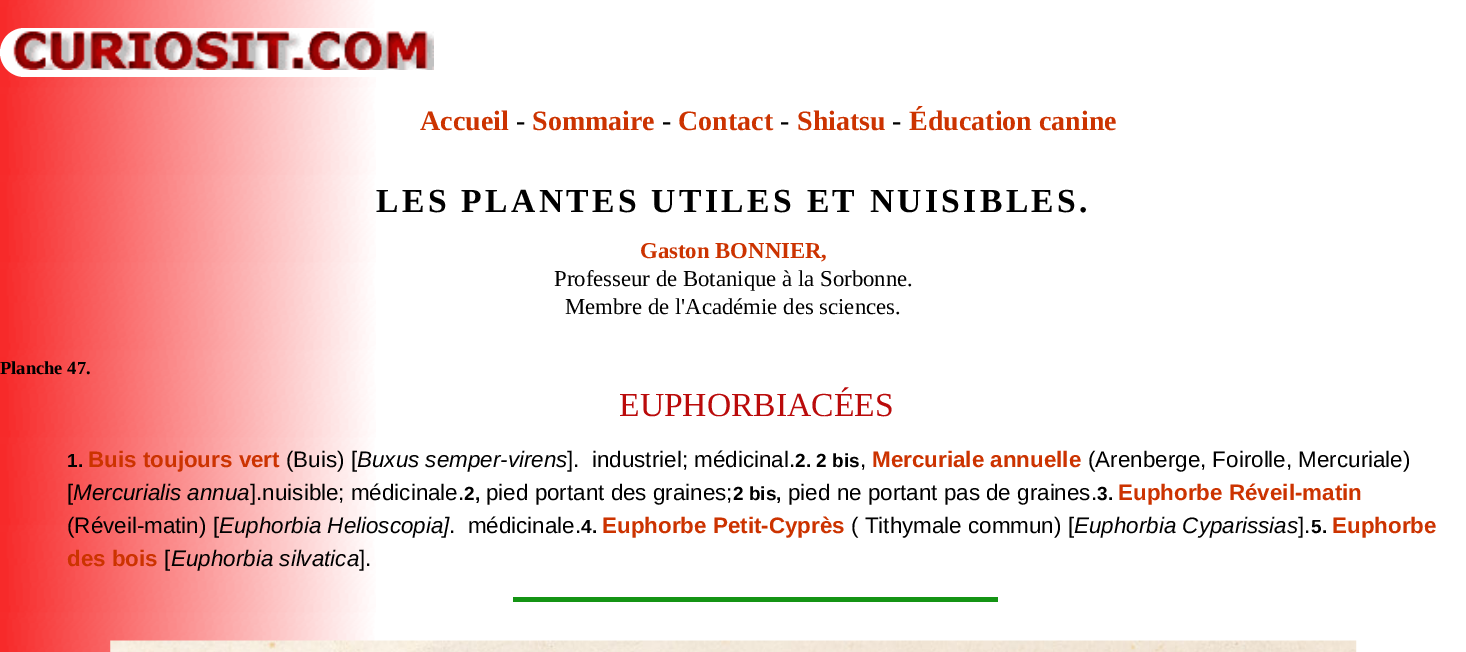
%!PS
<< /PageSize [1466 652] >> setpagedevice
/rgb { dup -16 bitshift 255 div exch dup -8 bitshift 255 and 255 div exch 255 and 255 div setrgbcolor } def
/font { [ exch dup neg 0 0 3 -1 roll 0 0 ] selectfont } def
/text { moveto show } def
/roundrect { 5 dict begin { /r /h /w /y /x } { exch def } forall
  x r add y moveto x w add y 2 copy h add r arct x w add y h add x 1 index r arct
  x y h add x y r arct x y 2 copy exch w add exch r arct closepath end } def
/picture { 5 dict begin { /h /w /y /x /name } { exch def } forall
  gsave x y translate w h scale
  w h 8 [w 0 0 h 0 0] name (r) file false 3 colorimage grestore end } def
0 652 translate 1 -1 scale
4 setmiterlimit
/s1 { /LiberationSerif-Bold 28 font 16#CC3300 rgb } def
/s2 { /LiberationSerif-Regular 28 font 16#000000 rgb } def
/s3 { /LiberationSerif-Bold 22.75 font 16#CC3300 rgb } def
/s4 { /LiberationSerif-Regular 22.75 font 16#000000 rgb } def
/s5 { /LiberationSerif-Bold 18.5 font 16#000000 rgb } def
/s6 { /LiberationSerif-Regular 33.6 font 16#BA0B0B rgb } def
/s7 { /LiberationSans-Bold 19 font 16#000000 rgb } def
/s8 { /LiberationSans-Bold 22.4 font 16#CC3300 rgb } def
/s9 { /LiberationSans-Regular 22.4 font 16#000000 rgb } def
/s10 { /LiberationSans-Italic 22.4 font 16#000000 rgb } def
16#FFFFFF rgb
0 0 1466 652 rectfill
(pic1.raw) 0 0 376 652 picture
0 28 438 49 24.5 roundrect fill
(pic2.raw) 13 31 421 39 picture
s1
(Accueil) 420 130 text
s2
(-) 516 130 text
s1
(Sommaire) 532 130 text
s2
(-) 662 130 text
s1
(Contact) 678 130 text
s2
(-) 780 130 text
s1
(Shiatsu) 797 130 text
s2
(-) 892 130 text
s1
(Éducation canine) 909 130 text
/LiberationSerif-Bold 33.6 font
16#000000 rgb
376 212 moveto 3.35 0 (LES PLANTES UTILES ET NUISIBLES.) ashow
s3
(Gaston BONNIER,) 640 258 text
s4
(Professeur de Botanique à la Sorbonne.) 554 286 text
(Membre de l'Académie des sciences.) 565 314 text
s5
(Planche 47.) 0 374 text
s6
(EUPHORBIACÉES) 619 416 text
s7
(1.) 67 467 text
s8
(Buis toujours vert) 88 467 text
s9
(\(Buis\) [) 286 467 text
s10
(Buxus semper-virens) 357 467 text
s9
(].  industriel; médicinal.) 567 467 text
s7
(2. 2 bis) 795 467 text
s9
(,) 860 467 text
s8
(Mercuriale annuelle) 872 467 text
s9
(\(Arenberge, Foirolle, Mercuriale\)) 1088 467 text
([) 67 500 text
s10
(Mercurialis annua) 73 500 text
s9
(].nuisible; médicinale.) 250 500 text
s7
(2,) 464 500 text
s9
(pied portant des graines;) 486 500 text
s7
(2 bis,) 733 500 text
s9
(pied ne portant pas de graines.) 788 500 text
s7
(3.) 1097 500 text
s8
(Euphorbe Réveil-matin) 1118 500 text
s9
(\(Réveil-matin\) [) 67 533 text
s10
(Euphorbia Helioscopia]) 219 533 text
s9
(.  médicinale.) 449 533 text
s7
(4.) 581 533 text
s8
(Euphorbe Petit-Cyprès) 602 533 text
s9
(\( Tithymale commun\) [) 851 533 text
s10
(Euphorbia Cyparissias) 1074 533 text
s9
(].) 1298 533 text
s7
(5.) 1311 533 text
s8
(Euphorbe) 1332 533 text
(des bois) 67 566 text
s9
([) 164 566 text
s10
(Euphorbia silvatica) 171 566 text
s9
(].) 359 566 text
16#149414 rgb
513 597 485 5 rectfill
(pic3.raw) 110 640 1247 12 picture
showpage
